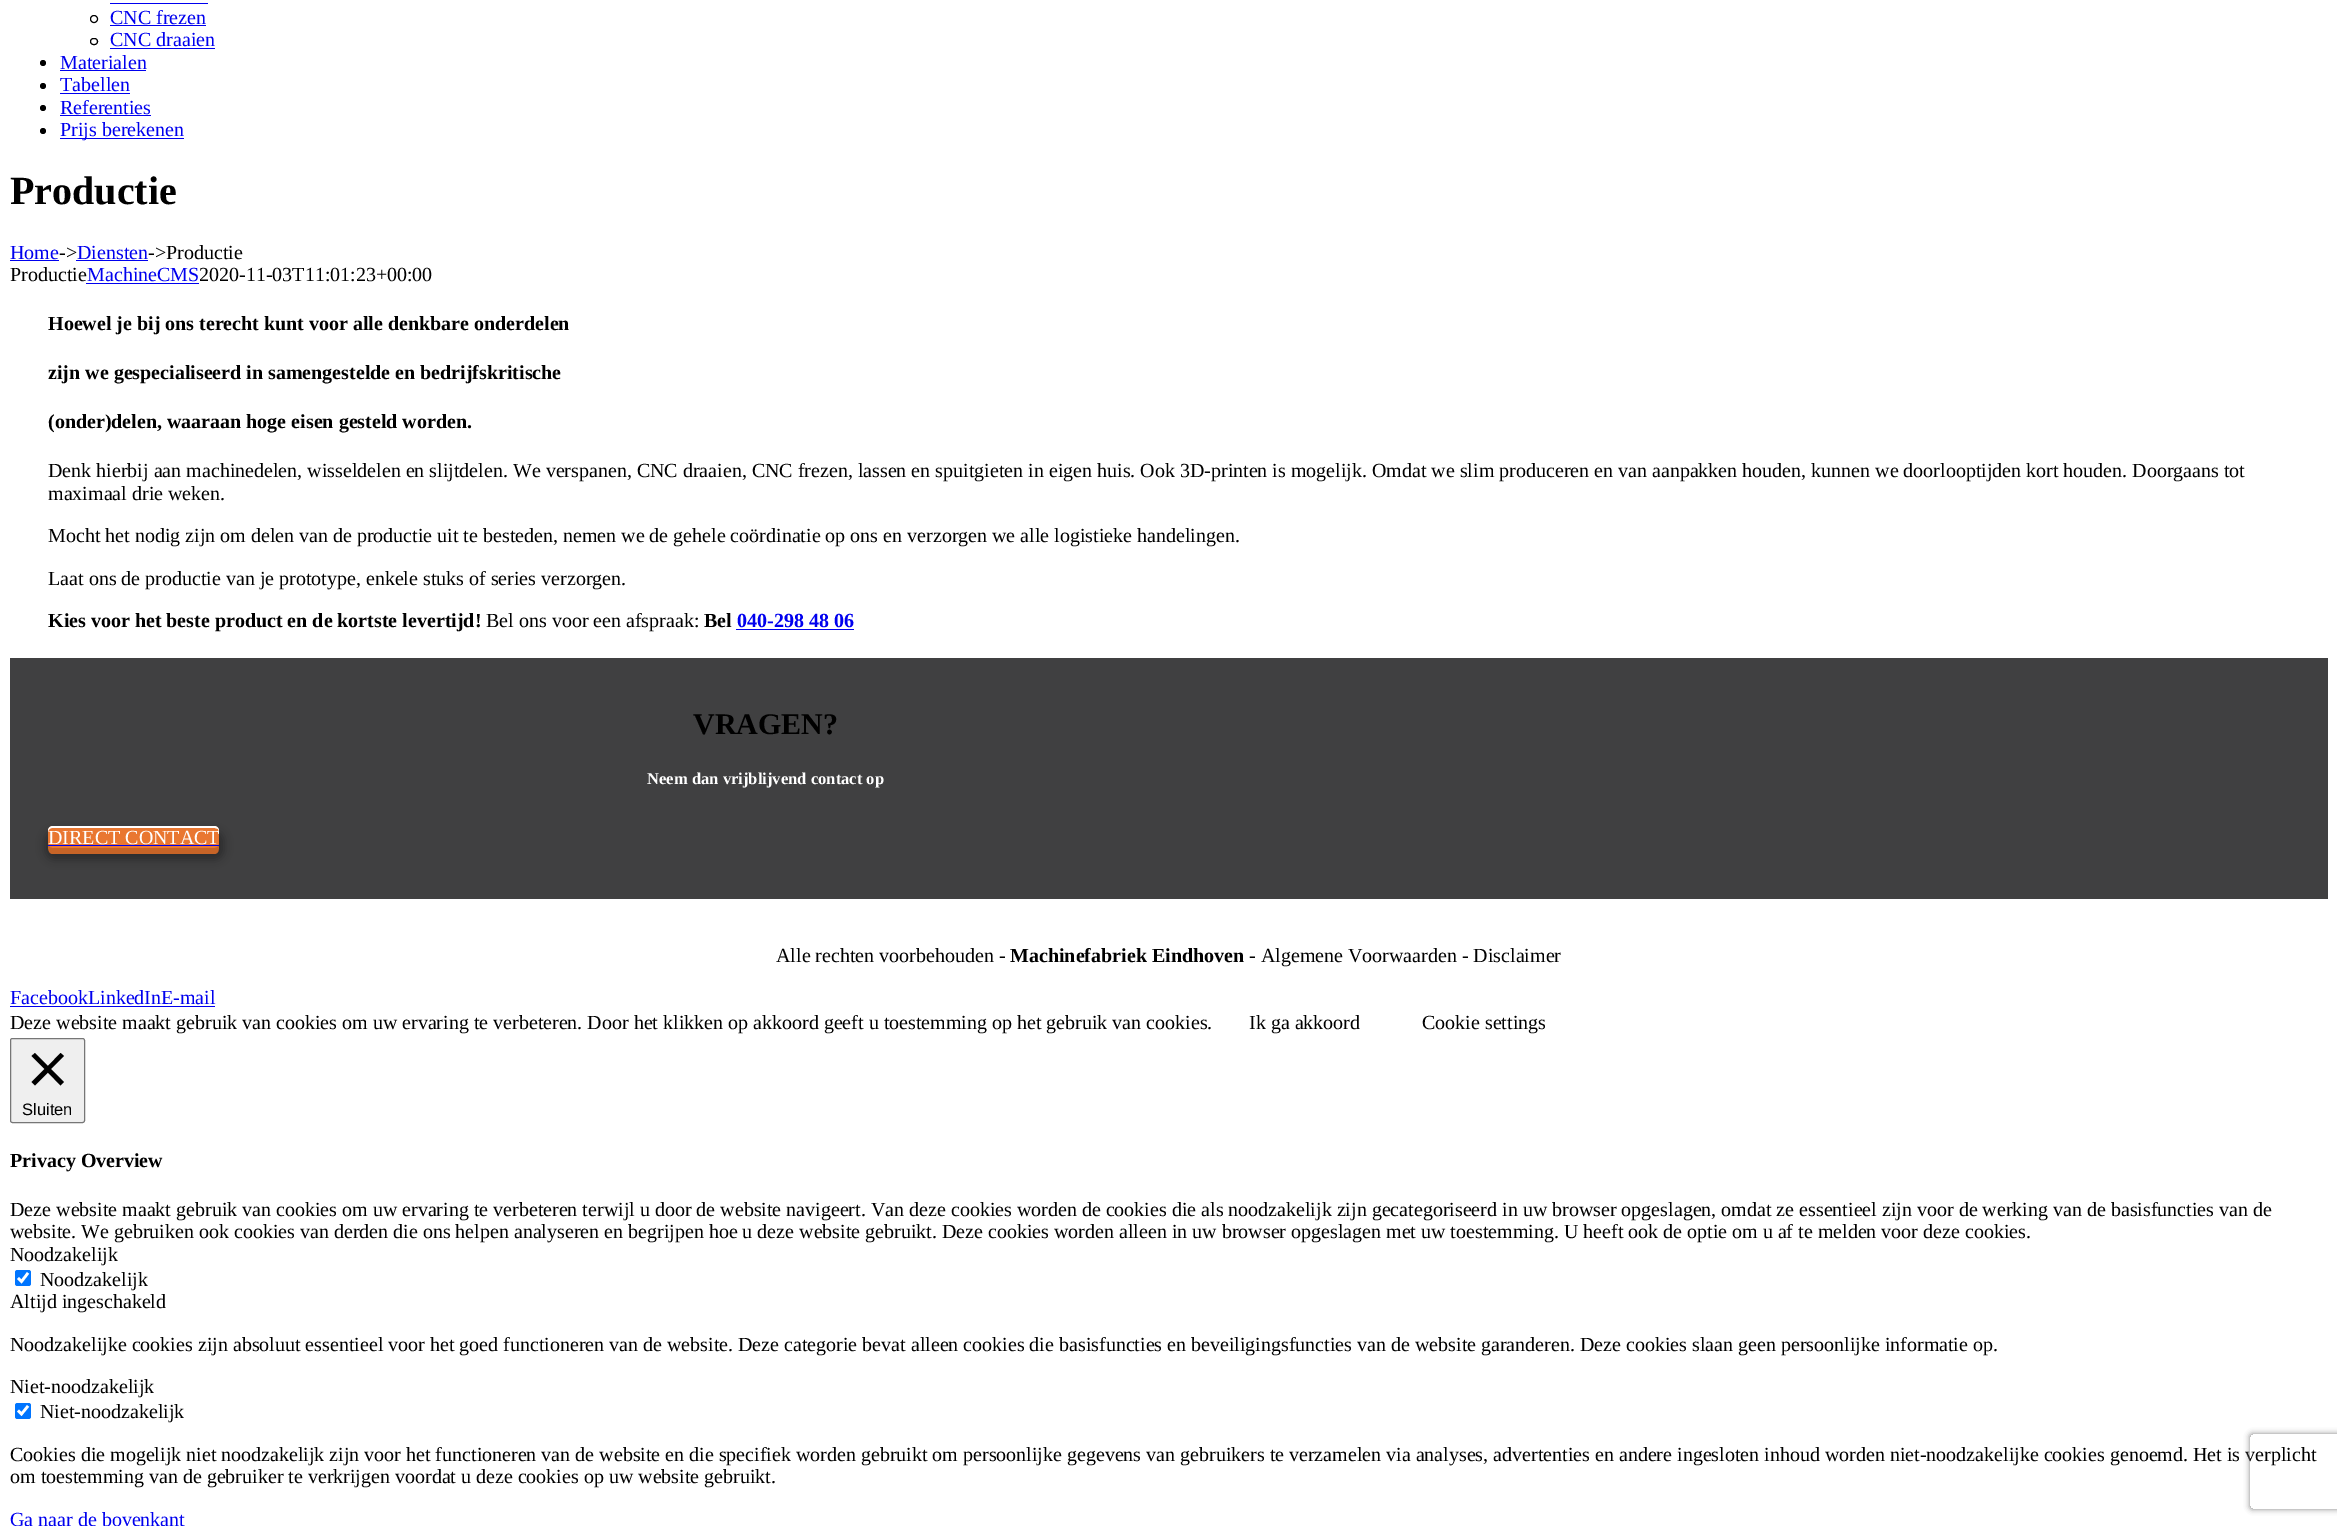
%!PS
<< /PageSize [2337 1526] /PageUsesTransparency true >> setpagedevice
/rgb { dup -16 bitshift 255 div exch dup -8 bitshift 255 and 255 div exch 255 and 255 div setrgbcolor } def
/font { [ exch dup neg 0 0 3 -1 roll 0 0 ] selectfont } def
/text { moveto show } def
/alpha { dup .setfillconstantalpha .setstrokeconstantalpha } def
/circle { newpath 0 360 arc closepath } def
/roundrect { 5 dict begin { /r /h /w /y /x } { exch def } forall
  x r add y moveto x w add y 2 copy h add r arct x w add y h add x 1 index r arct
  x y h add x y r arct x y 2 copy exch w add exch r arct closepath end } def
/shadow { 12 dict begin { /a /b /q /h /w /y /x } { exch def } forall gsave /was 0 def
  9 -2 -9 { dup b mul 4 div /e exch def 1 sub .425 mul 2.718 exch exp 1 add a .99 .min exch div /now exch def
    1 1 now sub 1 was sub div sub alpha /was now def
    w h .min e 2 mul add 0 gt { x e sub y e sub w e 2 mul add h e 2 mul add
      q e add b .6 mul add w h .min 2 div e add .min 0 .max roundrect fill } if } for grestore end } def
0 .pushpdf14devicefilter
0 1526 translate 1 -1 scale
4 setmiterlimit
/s1 { /LiberationSerif-Regular 20 font 16#0000EE rgb } def
/s2 { /LiberationSerif-Bold 40 font 16#000000 rgb } def
/s3 { /LiberationSerif-Regular 20 font 16#000000 rgb } def
/s4 { /LiberationSerif-Bold 20 font 16#000000 rgb } def
/s5 { /LiberationSerif-Bold 20 font 16#0000EE rgb } def
/s6 { /LiberationSerif-Bold 30 font 16#000000 rgb } def
/s7 { /LiberationSerif-Bold 16.6 font 16#FFFFFF rgb } def
/s8 { /LiberationSerif-Regular 20 font 16#FFFFFF rgb } def
/s9 { /LiberationSans-Regular 16.5 font 16#000000 rgb } def
16#FFFFFF rgb
0 0 2337 1526 rectfill
16#0000EE rgb
110 3 98 1 rectfill
16#000000 rgb
94 19 3.5 circle stroke
s1
(CNC frezen) 110 24 text
110 25 96 1 rectfill
16#000000 rgb
90.5 38.5 7 6 3 roundrect stroke
s1
(CNC draaien) 110 46 text
110 48 105 1 rectfill
16#000000 rgb
43 63 3 circle fill
s1
(Materialen) 60 69 text
60 70 86 1 rectfill
16#000000 rgb
43 86 3 circle fill
s1
(Tabellen) 60 91 text
60 93 70 1 rectfill
16#000000 rgb
43 108 3 circle fill
s1
(Referenties) 60 114 text
60 115 91 1 rectfill
16#000000 rgb
43 131 3 circle fill
16#0000EE rgb
60 138 124 1 rectfill
(Prijs berekenen) 60 136 text
s2
(Productie) 10 204 text
s1
(Home) 10 259 text
10 260 49 1 rectfill
s3
(->) 59 259 text
s1
(Diensten) 77 259 text
76 260 72 1 rectfill
s3
(->Productie) 148 259 text
(Productie) 10 281 text
s1
(MachineCMS) 87 281 text
86 283 113 1 rectfill
s3
(2020-11-03T11:01:23+00:00) 199 281 text
s4
(Hoewel je bij ons terecht kunt voor alle denkbare onderdelen) 48 330 text
(zijn we gespecialiseerd in samengestelde en bedrijfskritische) 48 379 text
(\(onder\)delen, waaraan hoge eisen gesteld worden.) 48 428 text
s3
(Denk hierbij aan machinedelen, wisseldelen en slijtdelen. We verspanen, CNC draaien, CNC frezen, lassen en spuitgieten in eigen huis. Ook 3D-printen is mogelijk. Omdat we slim produceren en van aanpakken houden, kunnen we doorlooptijden kort houden. Doorgaans tot) 48 477 text
(maximaal drie weken.) 48 500 text
(Mocht het nodig zijn om delen van de productie uit te besteden, nemen we de gehele coördinatie op ons en verzorgen we alle logistieke handelingen.) 48 542 text
(Laat ons de productie van je prototype, enkele stuks of series verzorgen.) 48 585 text
s4
(Kies voor het beste product en de kortste levertijd!) 48 627 text
s3
(Bel ons voor een afspraak:) 486 627 text
s4
(Bel) 704 627 text
s5
(040-298 48 06) 737 627 text
736 629 118 1 rectfill
16#404041 rgb
10 658 2318 241 rectfill
s6
(VRAGEN?) 693 734 text
s7
(Neem dan vrijblijvend contact op) 647 784 text
16#000000 rgb
45 831 179 29 9 4.5 0.3 shadow
16#C76427 rgb
48 845 moveto 48 848 48 854 53 854 curveto 214 854 lineto 219 854 219 849 219 845 curveto 219 836 lineto 219 842 lineto 219 845 217 848 214 848 curveto 52 848 lineto 51 848 49 846 48 845 curveto closepath fill
16#E97731 rgb
48 826 171 22 5 roundrect fill
16#FFFFFF rgb
52 828 moveto 215 828 lineto 218 829 lineto 219 832 lineto 219 831 lineto 219 828 217 826 214 826 curveto 53 826 lineto 50 826 48 828 48 831 curveto 48 832 lineto 48 830 50 828 52 828 curveto closepath fill
s8
(DIRECT CONTACT) 48 844 text
16#0000EE rgb
48 845 171 1 rectfill
s3
(Alle rechten voorbehouden -) 776 962 text
s4
(Machinefabriek Eindhoven) 1010 962 text
s3
(- Algemene Voorwaarden - Disclaimer) 1249 962 text
s1
(FacebookLinkedInE-mail) 10 1004 text
10 1006 205 1 rectfill
s3
(Deze website maakt gebruik van cookies om uw ervaring te verbeteren. Door het klikken op akkoord geeft u toestemming op het gebruik van cookies.) 10 1029 text
(Ik ga akkoord) 1249 1029 text
(Cookie settings) 1422 1029 text
16#EFEFEF rgb
10.5 1038.5 74 84 2 roundrect gsave fill grestore
16#767676 rgb
stroke
16#000000 rgb
64 1056 moveto 60.5 1053 lineto 48 1066 lineto 35 1053 lineto 31.5 1056 lineto 44.5 1069 lineto 31.5 1082 lineto 35 1085.5 lineto 48 1072.5 lineto 60.5 1085.5 lineto 64 1082 lineto 51 1069 lineto closepath fill
s9
(Sluiten) 22 1115 text
s4
(Privacy Overview) 10 1167 text
s3
(Deze website maakt gebruik van cookies om uw ervaring te verbeteren terwijl u door de website navigeert. Van deze cookies worden de cookies die als noodzakelijk zijn gecategoriseerd in uw browser opgeslagen, omdat ze essentieel zijn voor de werking van de basisfuncties van de) 10 1216 text
(website. We gebruiken ook cookies van derden die ons helpen analyseren en begrijpen hoe u deze website gebruikt. Deze cookies worden alleen in uw browser opgeslagen met uw toestemming. U heeft ook de optie om u af te melden voor deze cookies.) 10 1238 text
(Noodzakelijk) 10 1261 text
16#0075FF rgb
15 1270 16 16 2.5 roundrect fill
16#FFFFFF rgb
2.6 setlinewidth
18 1278 moveto 21.5 1281.5 lineto 28 1273 lineto stroke
s3
(Noodzakelijk) 40 1286 text
(Altijd ingeschakeld) 10 1308 text
(Noodzakelijke cookies zijn absoluut essentieel voor het goed functioneren van de website. Deze categorie bevat alleen cookies die basisfuncties en beveiligingsfuncties van de website garanderen. Deze cookies slaan geen persoonlijke informatie op.) 10 1351 text
(Niet-noodzakelijk) 10 1393 text
16#0075FF rgb
15 1403 16 16 2.5 roundrect fill
16#FFFFFF rgb
18 1410.5 moveto 21.5 1414 lineto 28 1406 lineto stroke
s3
(Niet-noodzakelijk) 40 1418 text
(Cookies die mogelijk niet noodzakelijk zijn voor het functioneren van de website en die specifiek worden gebruikt om persoonlijke gegevens van gebruikers te verzamelen via analyses, advertenties en andere ingesloten inhoud worden niet-noodzakelijke cookies genoemd. Het is verplicht) 10 1461 text
(om toestemming van de gebruiker te verkrijgen voordat u deze cookies op uw website gebruikt.) 10 1483 text
s1
(Ga naar de bovenkant) 10 1526 text
gsave
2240 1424 moveto 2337 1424 lineto 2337 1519 lineto 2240 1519 lineto closepath 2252.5 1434 moveto 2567.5 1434 lineto 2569 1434 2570 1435 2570 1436.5 curveto 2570 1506.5 lineto 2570 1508 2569 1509 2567.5 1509 curveto 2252.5 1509 lineto 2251 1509 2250 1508 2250 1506.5 curveto 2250 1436.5 lineto 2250 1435 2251 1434 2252.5 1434 curveto closepath eoclip newpath
16#808080 rgb
2250 1434 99 75 2.5 3 1 shadow
grestore
.poppdf14devicefilter showpage
